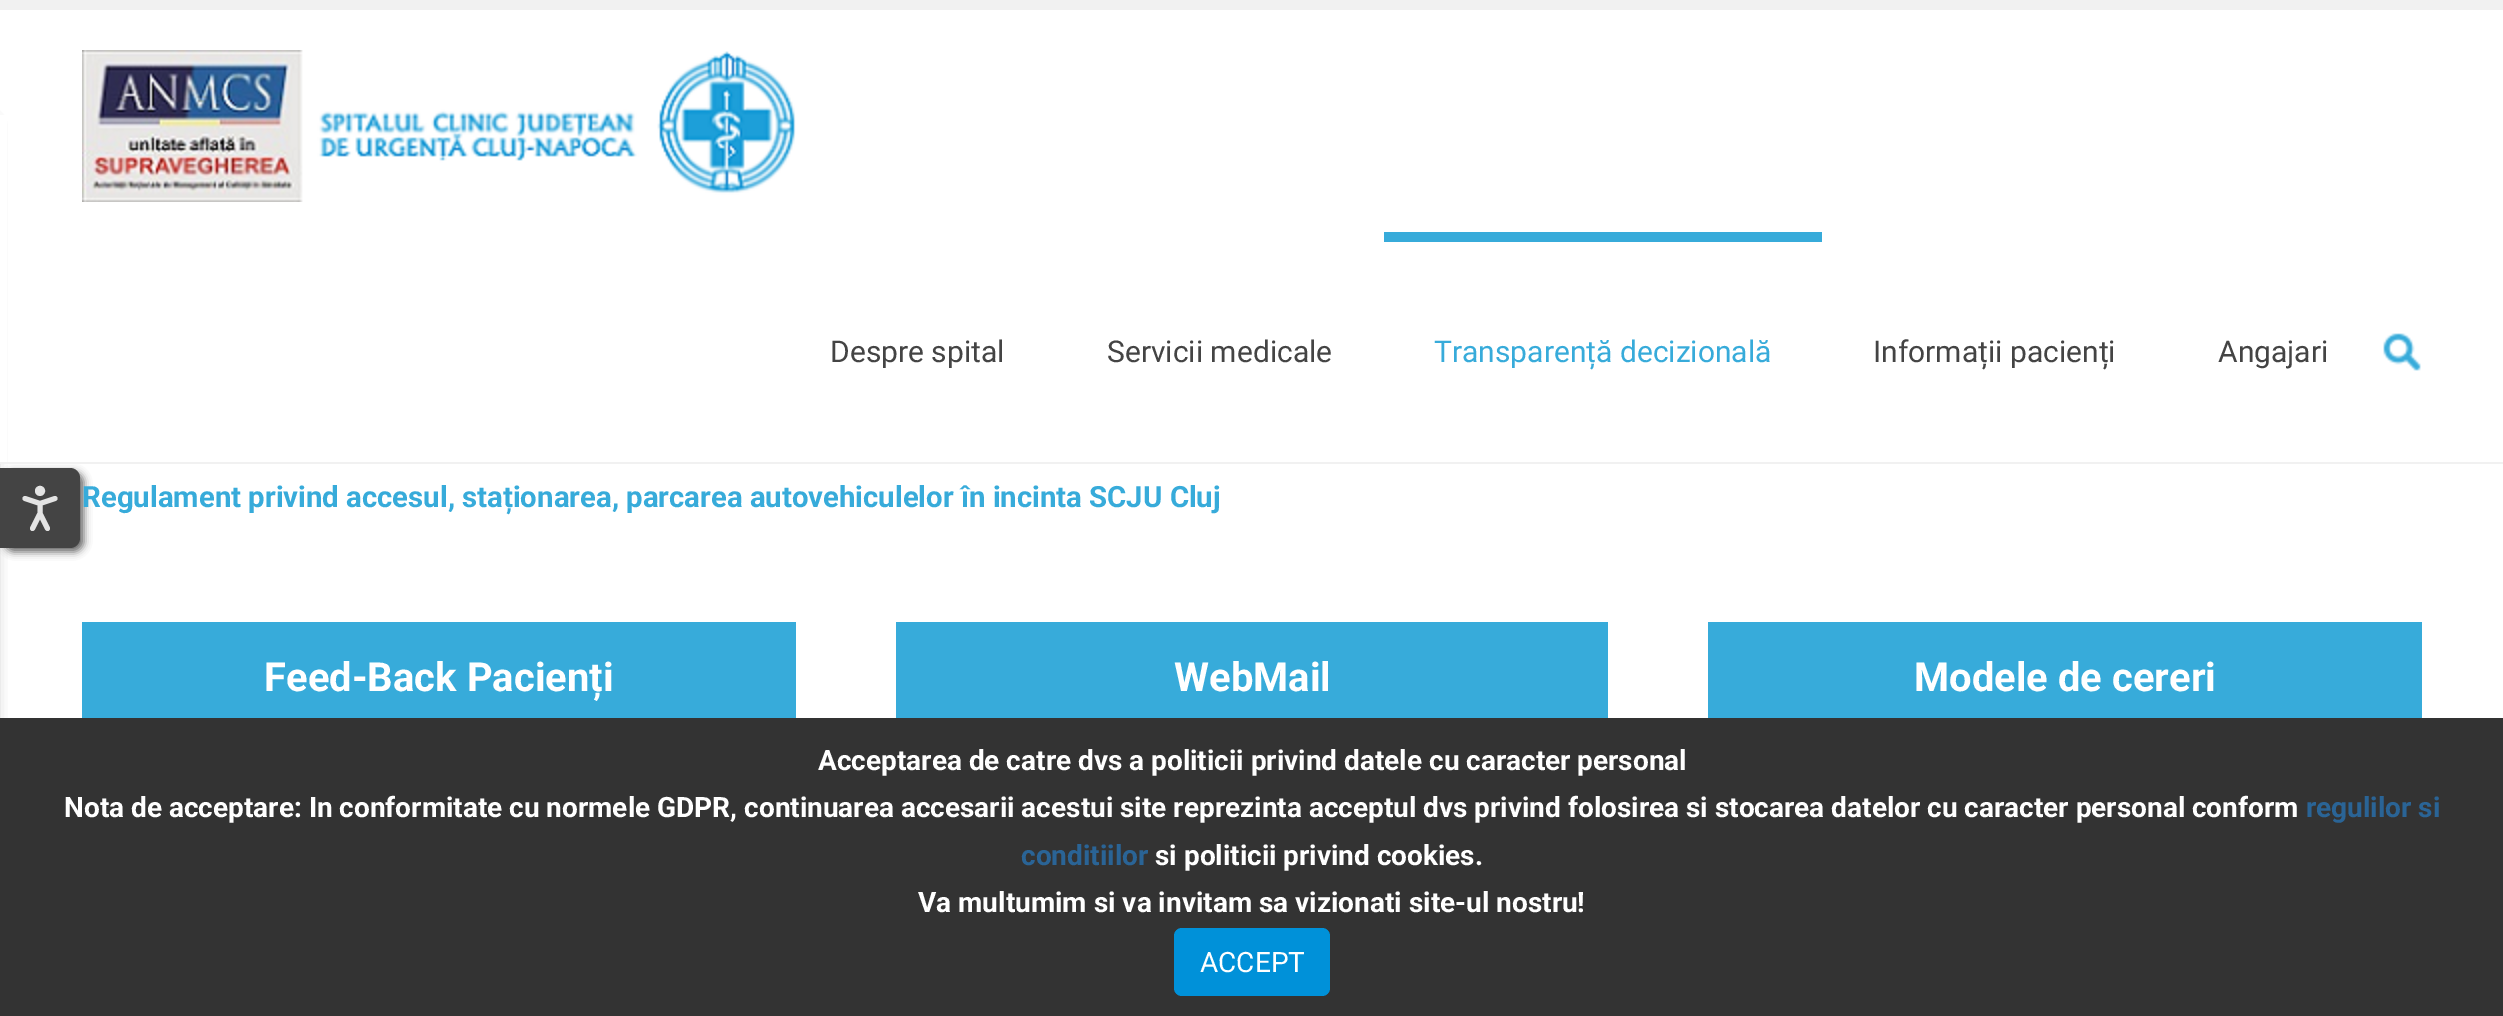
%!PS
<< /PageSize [2503 1016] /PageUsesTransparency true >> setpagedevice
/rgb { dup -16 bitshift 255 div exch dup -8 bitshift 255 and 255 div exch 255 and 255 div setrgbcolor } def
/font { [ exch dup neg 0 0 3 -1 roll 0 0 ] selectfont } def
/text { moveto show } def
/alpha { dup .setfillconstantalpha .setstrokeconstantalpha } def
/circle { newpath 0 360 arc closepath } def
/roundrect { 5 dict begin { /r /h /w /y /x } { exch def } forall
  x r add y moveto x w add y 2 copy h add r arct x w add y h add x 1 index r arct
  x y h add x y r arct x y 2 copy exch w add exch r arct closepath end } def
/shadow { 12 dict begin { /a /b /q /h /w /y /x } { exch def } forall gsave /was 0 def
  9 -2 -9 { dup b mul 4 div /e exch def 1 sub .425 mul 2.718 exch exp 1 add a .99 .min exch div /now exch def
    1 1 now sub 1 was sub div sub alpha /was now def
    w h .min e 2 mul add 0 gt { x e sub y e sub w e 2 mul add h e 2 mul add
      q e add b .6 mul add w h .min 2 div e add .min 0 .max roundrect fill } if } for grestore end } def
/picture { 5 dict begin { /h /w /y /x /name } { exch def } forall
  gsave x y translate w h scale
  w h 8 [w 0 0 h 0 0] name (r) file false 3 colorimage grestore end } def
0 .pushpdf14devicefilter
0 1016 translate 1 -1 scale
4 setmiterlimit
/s1 { /Roboto-Regular 30 font 16#444444 rgb } def
/s2 { /Roboto-Regular 30 font 16#37ABDA rgb } def
/s3 { /Roboto-Bold 29.35 font 16#37ABDA rgb } def
/s4 { /Roboto-Bold 40 font 16#FFFFFF rgb } def
/s5 { /Roboto-Bold 28 font 16#FFFFFF rgb } def
/s6 { /Roboto-Bold 28 font 16#2A6496 rgb } def
/s7 { /Roboto-Regular 28 font 16#FFFFFF rgb } def
16#FFFFFF rgb
0 0 2503 1016 rectfill
16#666666 rgb
-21 122 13 784 0 7 1 shadow
4 472 80 80 10 4 1 shadow
16#444444 rgb
0 468 moveto 70 468 lineto 75.5 468 80 472.5 80 478 curveto 80 538 lineto 80 543.5 75.5 548 70 548 curveto 0 548 lineto closepath fill
16#E3E3E3 rgb
5 setlinewidth
40 490.9 2.5 circle stroke
1 setlinecap
1 setlinejoin
32.5 528.5 moveto 40 513.5 lineto 47.5 528.5 lineto 25 498.5 moveto 40 503.5 lineto 55 498.5 lineto 40 503.5 moveto 40 513.5 lineto stroke
16#FFFFFF rgb
0 115 7 347 rectfill
16#F1F1F1 rgb
0 0 2503 10 rectfill
0 462 2503 2 rectfill
(pic1.raw) 82 50 714 152 picture
s1
(Despre spital) 830 362 text
(Servicii medicale) 1107 362 text
16#37ABDA rgb
1384 232 438 10 rectfill
(Transparență decizională) 1434 362 text
s1
(Informații pacienți) 1873 362 text
(Angajari) 2218 362 text
(pic2.raw) 2383 333 38 38 picture
s3
(Regulament privind accesul, staționarea, parcarea autovehiculelor în incinta SCJU Cluj) 82 507 text
82 622 714 96 rectfill
s4
(Feed-Back Pacienți) 264 691 text
16#37ABDA rgb
896 622 712 96 rectfill
s4
(WebMail) 1174 691 text
16#37ABDA rgb
1708 622 714 96 rectfill
s4
(Modele de cereri) 1914 691 text
16#333333 rgb
0 718 2503 298 rectfill
s5
(Acceptarea de catre dvs a politicii privind datele cu caracter personal) 818 770 text
(Nota de acceptare: In conformitate cu normele GDPR, continuarea accesarii acestui site reprezinta acceptul dvs privind folosirea si stocarea datelor cu caracter personal conform) 64 817 text
s6
(regulilor si) 2306 817 text
(conditiilor) 1021 865 text
s5
(si politicii privind cookies.) 1155 865 text
(Va multumim si va invitam sa vizionati site-ul nostru!) 918 912 text
16#0091D9 rgb
1174 928 156 68 8 roundrect fill
s7
(ACCEPT) 1200 972 text
.poppdf14devicefilter showpage
